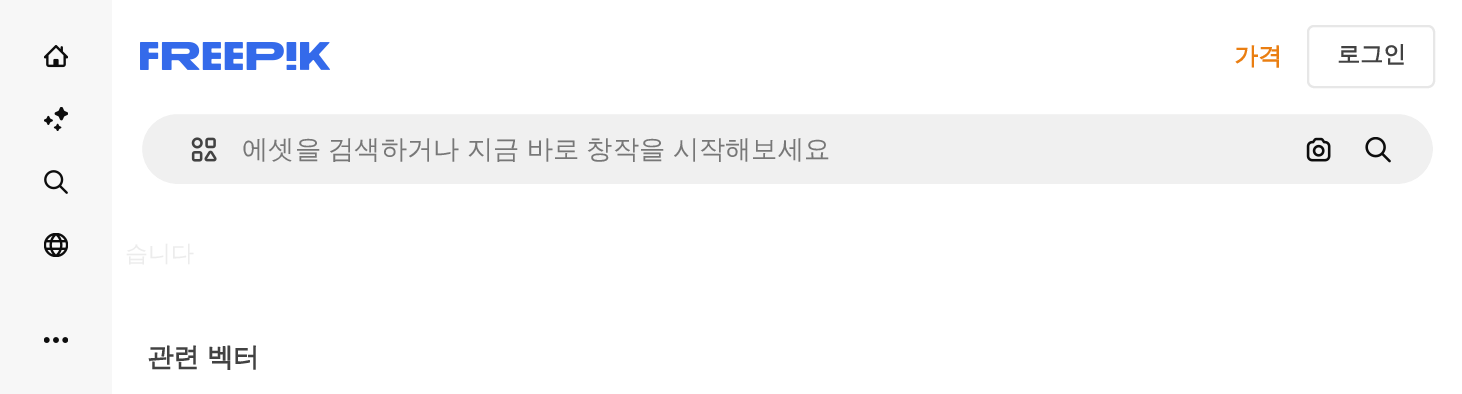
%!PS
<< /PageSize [1462 394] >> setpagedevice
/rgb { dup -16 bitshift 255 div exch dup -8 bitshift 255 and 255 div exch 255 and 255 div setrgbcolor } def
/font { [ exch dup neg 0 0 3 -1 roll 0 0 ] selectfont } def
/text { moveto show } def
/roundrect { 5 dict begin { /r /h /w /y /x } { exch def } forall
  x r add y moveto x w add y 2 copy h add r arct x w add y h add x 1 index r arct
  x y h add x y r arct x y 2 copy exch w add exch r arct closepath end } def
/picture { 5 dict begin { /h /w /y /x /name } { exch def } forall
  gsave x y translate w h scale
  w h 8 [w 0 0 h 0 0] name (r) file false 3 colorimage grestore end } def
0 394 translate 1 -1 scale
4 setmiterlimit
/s1 { /WenQuanYiZenHei-Bold 24 font 16#EA7E11 rgb } def
/s2 { /WenQuanYiZenHei-Bold 23 font 16#424242 rgb } def
/s3 { /WenQuanYiZenHei-Medium 23 font 16#ECECEC rgb } def
16#FFFFFF rgb
0 0 1462 394 rectfill
16#F7F7F7 rgb
0 0 112 394 rectfill
(pic1.raw) 44 45 24 23 picture
(pic2.raw) 44 107 24 24 picture
(pic3.raw) 44 170 24 24 picture
(pic4.raw) 44 233 24 24 picture
(pic5.raw) 44 337 24 6 picture
(pic6.raw) 140 42 190 28 picture
s1
(가격) 1234 64 text
16#E7E7E7 rgb
2 setlinewidth
1308 26 126 61 6 roundrect stroke
s2
(로그인) 1337 62 text
16#F0F0F0 rgb
141 113 1293 72 36 roundrect gsave fill grestore
16#FFFFFF rgb
stroke
(pic7.raw) 191 137 26 25 picture
/WenQuanYiZenHei-Medium 26.25 font
16#777777 rgb
242 158 moveto -0.5 0 32 (에셋을 검색하거나 지금 바로 창작을 시작해보세요) widthshow
(pic8.raw) 1306 137 25 25 picture
(pic9.raw) 1365 137 26 26 picture
/WenQuanYiZenHei-Bold 26.25 font
16#424242 rgb
147 366 moveto -0.5 0 32 (관련 벡터) widthshow
s3
(습니다) 125 261 text
showpage
